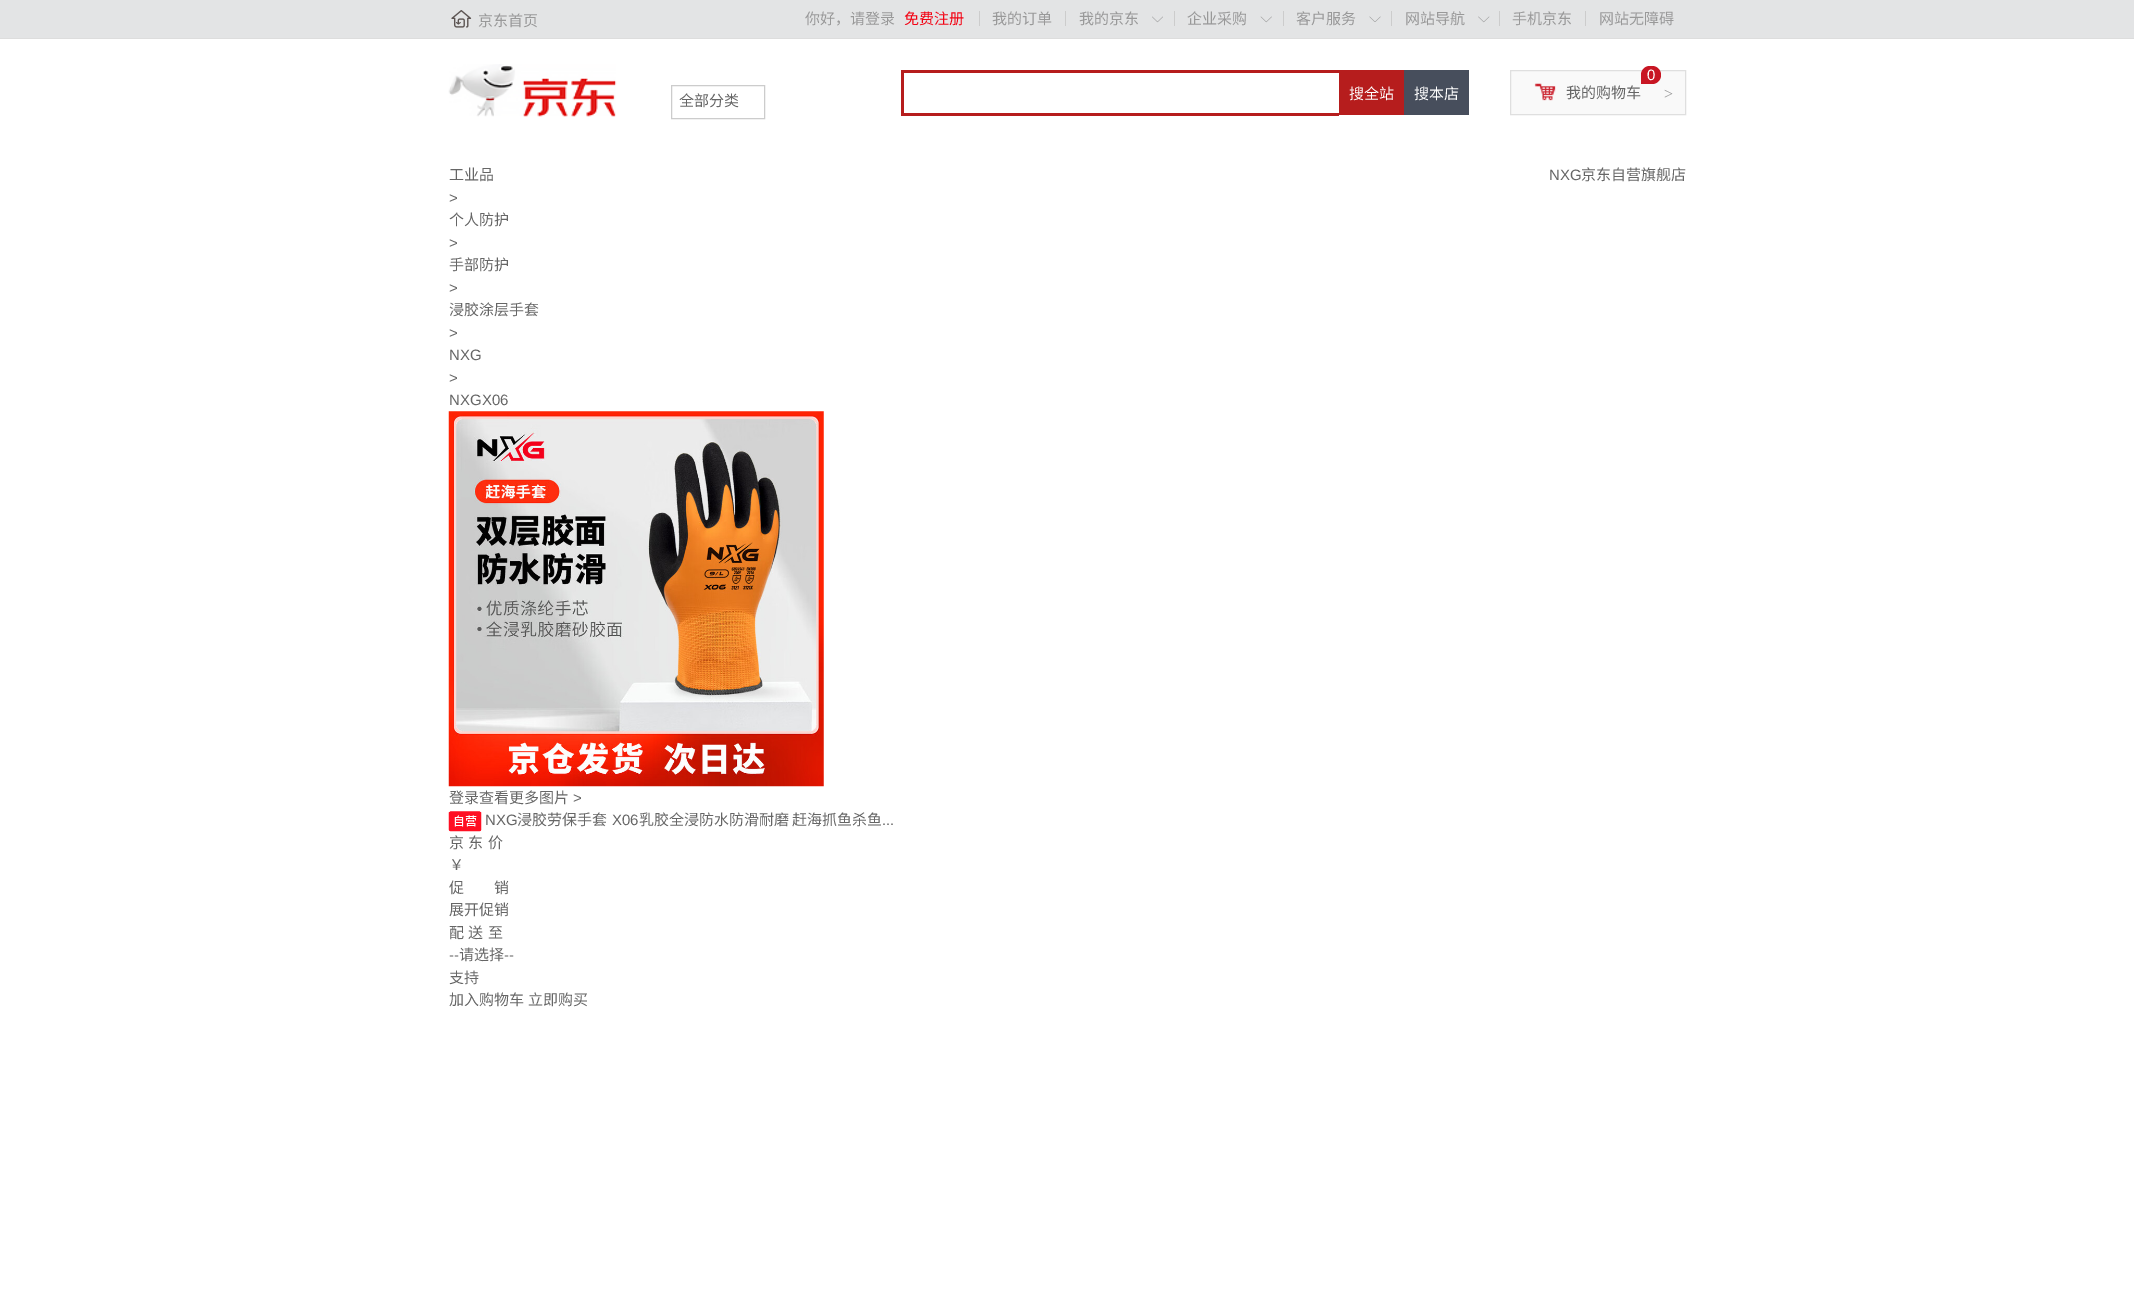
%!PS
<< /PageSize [2134 1293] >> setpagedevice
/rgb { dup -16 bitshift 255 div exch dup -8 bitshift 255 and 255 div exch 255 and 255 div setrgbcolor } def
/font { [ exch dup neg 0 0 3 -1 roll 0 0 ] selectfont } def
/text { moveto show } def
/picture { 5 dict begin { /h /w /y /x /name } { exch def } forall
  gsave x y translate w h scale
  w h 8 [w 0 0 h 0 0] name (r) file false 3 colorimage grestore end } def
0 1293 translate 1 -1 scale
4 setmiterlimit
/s1 { /NotoSansCJKSC-Regular 15 font 16#999999 rgb } def
/s2 { /NotoSansCJKSC-Regular 15 font 16#F30213 rgb } def
/s3 { /NotoSansCJKSC-Regular 15 font 16#666666 rgb } def
/s4 { /NotoSansCJKSC-Regular 15 font 16#FFFFFF rgb } def
/s5 { /LiberationSans-Regular 15 font 16#FFFFFF rgb } def
/s6 { /LiberationSerif-Regular 16 font 16#999999 rgb } def
/s7 { /LiberationSans-Regular 15 font 16#666666 rgb } def
16#FFFFFF rgb
0 0 2134 1293 rectfill
16#E3E4E5 rgb
0 0 2134 38 rectfill
16#DDDDDD rgb
0 38 2134 1 rectfill
(pic1.raw) 451 10 21 18 picture
s1
(京东首页) 478 26 text
(你好，请登录) 805 24 text
s2
(免费注册) 904 24 text
16#CCCCCC rgb
979 11 1 15 rectfill
s1
(我的订单) 992 24 text
16#CCCCCC rgb
1065 11 1 15 rectfill
s1
(我的京东) 1079 24 text
(pic2.raw) 1152 16 11 7 picture
16#CCCCCC rgb
1174 11 1 15 rectfill
s1
(企业采购) 1187 24 text
(pic3.raw) 1260 16 12 7 picture
16#CCCCCC rgb
1283 11 1 15 rectfill
s1
(客户服务) 1296 24 text
(pic4.raw) 1369 16 12 6 picture
16#CCCCCC rgb
1391 11 1 15 rectfill
s1
(网站导航) 1405 24 text
(pic5.raw) 1478 16 12 7 picture
16#CCCCCC rgb
1499 11 1 15 rectfill
s1
(手机京东) 1512 24 text
16#CCCCCC rgb
1585 11 1 15 rectfill
s1
(网站无障碍) 1599 24 text
(pic6.raw) 448 64 169 53 picture
16#CCCCCC rgb
671.5 85.5 93 33 rectstroke
s3
(全部分类) 679 106 text
16#B61D1D rgb
901 70 438 3 rectfill
901 113 438 3 rectfill
901 70 3 45 rectfill
1339 70 65 45 rectfill
s4
(搜全站) 1349 99 text
16#474E5C rgb
1404 70 65 45 rectfill
s4
(搜本店) 1414 99 text
16#F9F9F9 rgb
1510.5 70.5 moveto 1685.5 70.5 lineto 1685.5 114.5 lineto 1510.5 114.5 lineto closepath gsave fill grestore
16#DFDFDF rgb
stroke
16#C81623 rgb
1650 66 moveto 1652 66 lineto 1657 66 1661 70 1661 75 curveto 1661 80 1657 84 1652 84 curveto 1641 84 lineto 1641 75 lineto 1641 70 1645 66 1650 66 curveto closepath fill
s5
(0) 1647 80 text
(pic7.raw) 1534 83 22 18 picture
s3
(我的购物车) 1566 98 text
s6
(>) 1664 99 text
s3
(工业品) 449 180 text
s7
(>) 449 203 text
s3
(个人防护) 449 225 text
s7
(>) 449 248 text
s3
(手部防护) 449 270 text
s7
(>) 449 293 text
s3
(浸胶涂层手套) 449 315 text
s7
(>) 449 338 text
(NXG) 449 360 text
(>) 449 383 text
(NXGX06) 449 405 text
(NXG) 1549 180 text
s3
(京东自营旗舰店) 1581 180 text
(pic8.raw) 448 411 376 376 picture
(登录查看更多图片) 449 803 text
s7
(>) 573 803 text
(pic9.raw) 448 811 34 21 picture
(NXG) 485 825 text
s3
(浸胶劳保手套) 517 825 text
s7
(X06) 612 825 text
s3
(乳胶全浸防水防滑耐磨 赶海抓鱼杀鱼) 639 825 text
s7
(...) 882 825 text
/NotoSansCJKSC-Regular 15 font
449 848 moveto 1 0 32 (京 东 价) widthshow
(￥) 449 870 text
(促　　销) 449 893 text
(展开促销) 449 915 text
449 938 moveto 1 0 32 (配 送 至) widthshow
s7
(--) 449 960 text
s3
(请选择) 459 960 text
s7
(--) 504 960 text
s3
(支持) 449 983 text
(加入购物车) 449 1005 text
(立即购买) 528 1005 text
showpage
